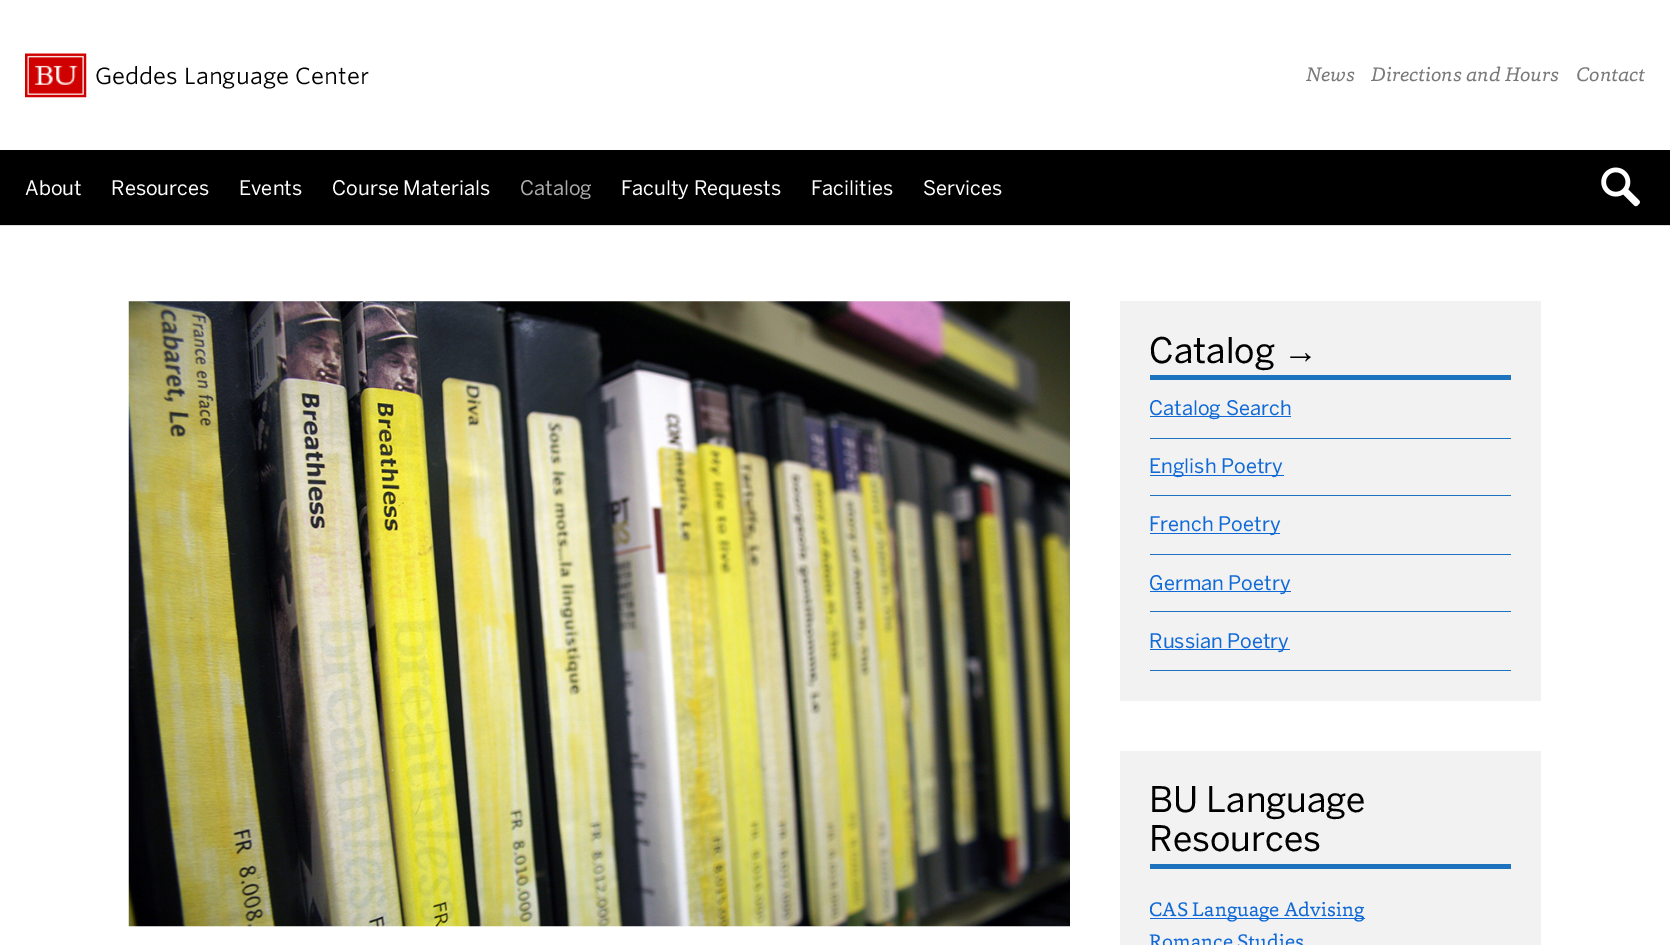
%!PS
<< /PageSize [1670 945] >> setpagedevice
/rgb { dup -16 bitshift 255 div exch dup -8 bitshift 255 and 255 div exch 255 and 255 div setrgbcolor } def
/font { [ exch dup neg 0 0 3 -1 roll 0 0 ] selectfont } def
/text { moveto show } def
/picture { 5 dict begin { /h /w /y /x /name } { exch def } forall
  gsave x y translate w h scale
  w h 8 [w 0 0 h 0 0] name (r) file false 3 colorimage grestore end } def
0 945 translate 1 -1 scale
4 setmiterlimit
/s1 { /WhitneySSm-Regular 22.5 font 16#000000 rgb } def
/s2 { /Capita-Italic 20 font 16#7A7A7A rgb } def
/s3 { /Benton-Regular 20 font 16#FFFFFF rgb } def
/s4 { /Benton-Regular 20 font 16#AAAAAA rgb } def
/s5 { /Benton-Regular 35 font 16#000000 rgb } def
/s6 { /LiberationSerif-Regular 35 font 16#000000 rgb } def
/s7 { /Benton-Regular 20 font 16#0F69D7 rgb } def
/s8 { /Capita-Regular 20 font 16#0F69D7 rgb } def
16#FFFFFF rgb
0 0 1670 945 rectfill
16#DDDDDD rgb
0 225 1670 1 rectfill
(pic1.raw) 25 53 62 45 picture
s1
(Geddes Language Center) 95 84 text
s2
(News) 1306 81 text
(Directions and Hours) 1371 81 text
(Contact) 1576 81 text
16#000000 rgb
0 150 1670 75 rectfill
s3
(About) 25 195 text
(Resources) 111 195 text
(Events) 239 195 text
(Course Materials) 332 195 text
s4
(Catalog) 520 195 text
s3
(Faculty Requests) 621 195 text
(Facilities) 811 195 text
(Services) 923 195 text
(pic2.raw) 1601 167 39 40 picture
(pic3.raw) 128 301 942 626 picture
16#F2F2F2 rgb
1120 301 421 400 rectfill
16#1E73BE rgb
1150 375 361 5 rectfill
s5
(Catalog) 1149 363 text
s6
(→) 1283 363 text
16#1E73BE rgb
1150 670 361 1 rectfill
16#0F69D7 rgb
1150 416 141 1 rectfill
s7
(Catalog Search) 1149 415 text
16#1E73BE rgb
1150 438 361 1 rectfill
16#0F69D7 rgb
1150 475 134 1 rectfill
(English Poetry) 1149 473 text
16#1E73BE rgb
1150 495 361 1 rectfill
16#0F69D7 rgb
1150 533 130 1 rectfill
(French Poetry) 1149 531 text
16#1E73BE rgb
1150 554 361 1 rectfill
16#0F69D7 rgb
1150 591 141 1 rectfill
(German Poetry) 1149 590 text
16#1E73BE rgb
1150 611 361 1 rectfill
16#0F69D7 rgb
1150 649 140 1 rectfill
(Russian Poetry) 1149 648 text
16#F2F2F2 rgb
1120 751 421 194 rectfill
16#1E73BE rgb
1150 864 361 5 rectfill
s5
(BU Language) 1149 812 text
(Resources) 1149 851 text
16#0F69D7 rgb
1150 918 215 1 rectfill
s8
(CAS Language Advising) 1149 916 text
(Romance Studies) 1149 948 text
showpage
